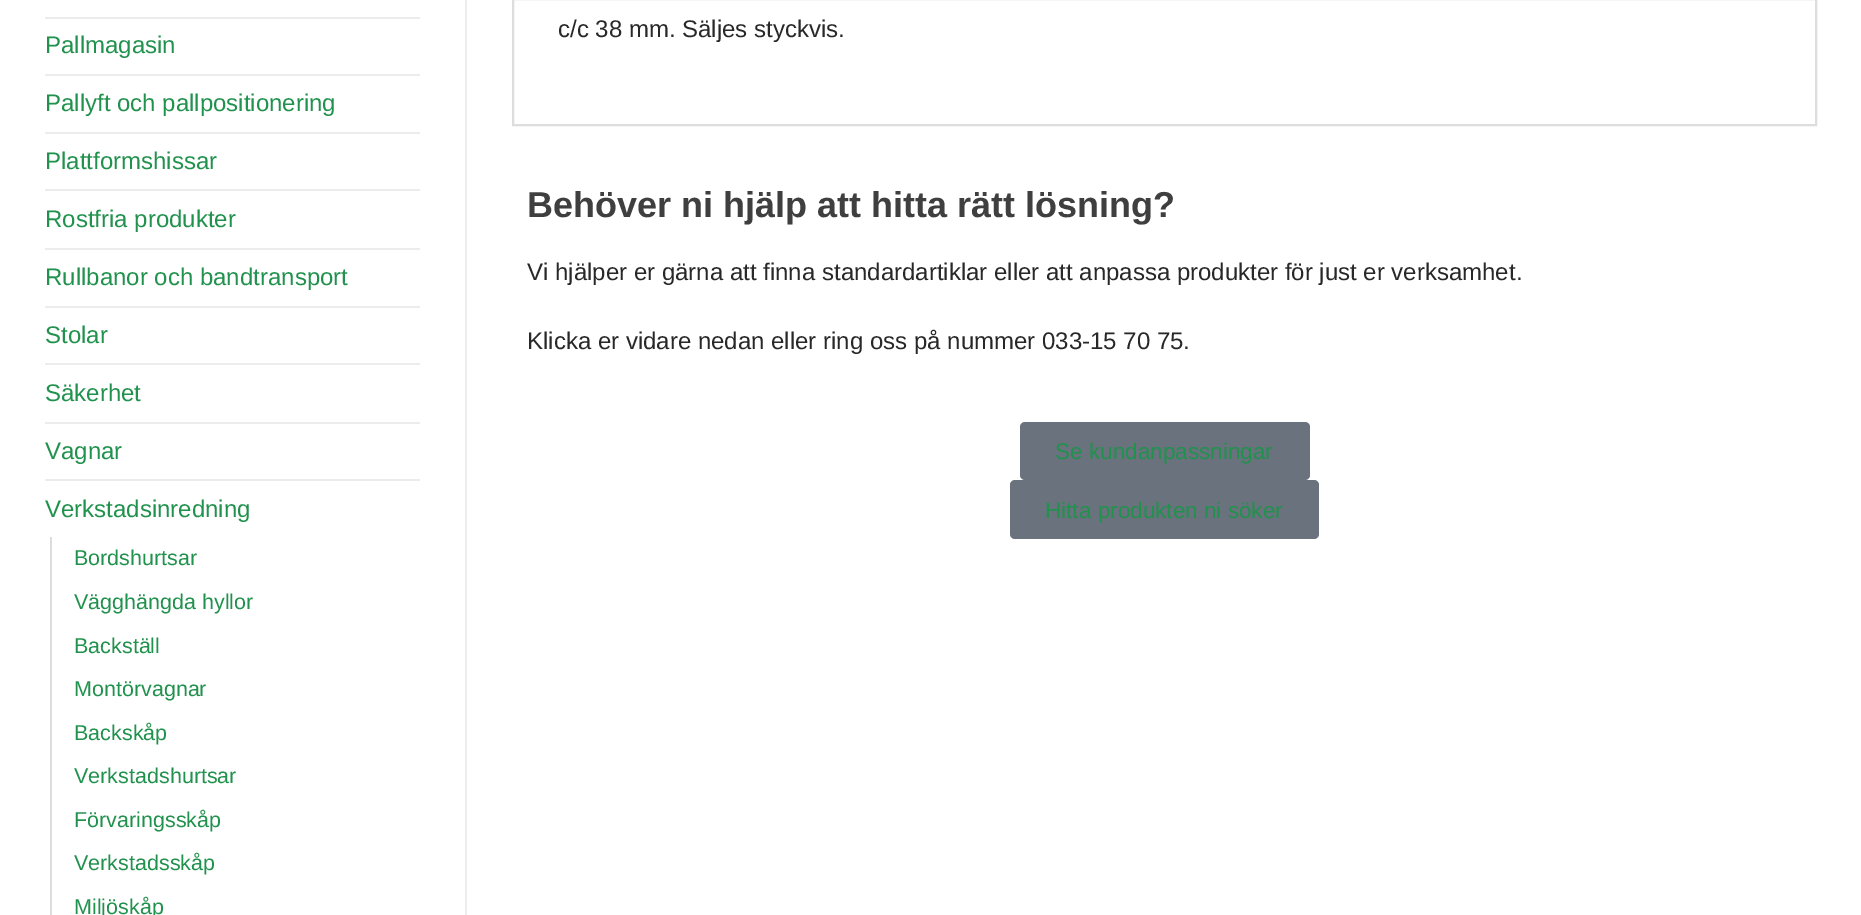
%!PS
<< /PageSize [1861 915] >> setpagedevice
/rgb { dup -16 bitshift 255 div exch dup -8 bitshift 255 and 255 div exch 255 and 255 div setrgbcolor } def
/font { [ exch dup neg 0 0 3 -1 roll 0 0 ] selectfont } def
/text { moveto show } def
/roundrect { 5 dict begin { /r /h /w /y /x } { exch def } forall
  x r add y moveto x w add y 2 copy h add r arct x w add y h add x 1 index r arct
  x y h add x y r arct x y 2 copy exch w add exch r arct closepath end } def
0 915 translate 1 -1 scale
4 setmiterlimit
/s1 { /LiberationSans-Regular 24 font 16#21924D rgb } def
/s2 { /LiberationSans-Regular 21.5 font 16#21924D rgb } def
/s3 { /LiberationSans-Regular 24 font 16#282828 rgb } def
/s4 { /LiberationSans-Bold 36 font 16#3F3F3F rgb } def
/s5 { /LiberationSans-Regular 22.5 font 16#21924D rgb } def
16#FFFFFF rgb
0 0 1861 915 rectfill
16#ECECEC rgb
45 17 375 2 rectfill
s1
(Pallmagasin) 45 53 text
16#ECECEC rgb
45 74 375 2 rectfill
s1
(Pallyft och pallpositionering) 45 111 text
16#ECECEC rgb
45 132 375 2 rectfill
s1
(Plattformshissar) 45 169 text
16#ECECEC rgb
45 189 375 2 rectfill
s1
(Rostfria produkter) 45 227 text
16#ECECEC rgb
45 248 375 2 rectfill
s1
(Rullbanor och bandtransport) 45 285 text
16#ECECEC rgb
45 306 375 2 rectfill
s1
(Stolar) 45 343 text
16#ECECEC rgb
45 363 375 2 rectfill
s1
(Säkerhet) 45 401 text
16#ECECEC rgb
45 422 375 2 rectfill
s1
(Vagnar) 45 459 text
16#ECECEC rgb
45 479 375 2 rectfill
s1
(Verkstadsinredning) 45 517 text
16#DDDDDD rgb
50 537 2 378 rectfill
s2
(Bordshurtsar) 74 565 text
(Vägghängda hyllor) 74 609 text
(Backställ) 74 653 text
(Montörvagnar) 74 696 text
(Backskåp) 74 740 text
(Verkstadshurtsar) 74 783 text
(Förvaringsskåp) 74 827 text
(Verkstadsskåp) 74 870 text
(Miljöskåp) 74 914 text
16#ECECEC rgb
465 0 2 915 rectfill
16#DDDDDD rgb
2 setlinewidth
513 -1 1303 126 rectstroke
s3
(c/c 38 mm. Säljes styckvis.) 558 37 text
s4
(Behöver ni hjälp att hitta rätt lösning?) 527 217 text
s3
(Vi hjälper er gärna att finna standardartiklar eller att anpassa produkter för just er verksamhet.) 527 280 text
(Klicka er vidare nedan eller ring oss på nummer 033-15 70 75.) 527 349 text
16#69727D rgb
1020 422 290 58 5 roundrect fill
s5
(Se kundanpassningar) 1055 459 text
16#69727D rgb
1010 480 309 59 5 roundrect fill
s5
(Hitta produkten ni söker) 1045 518 text
showpage
